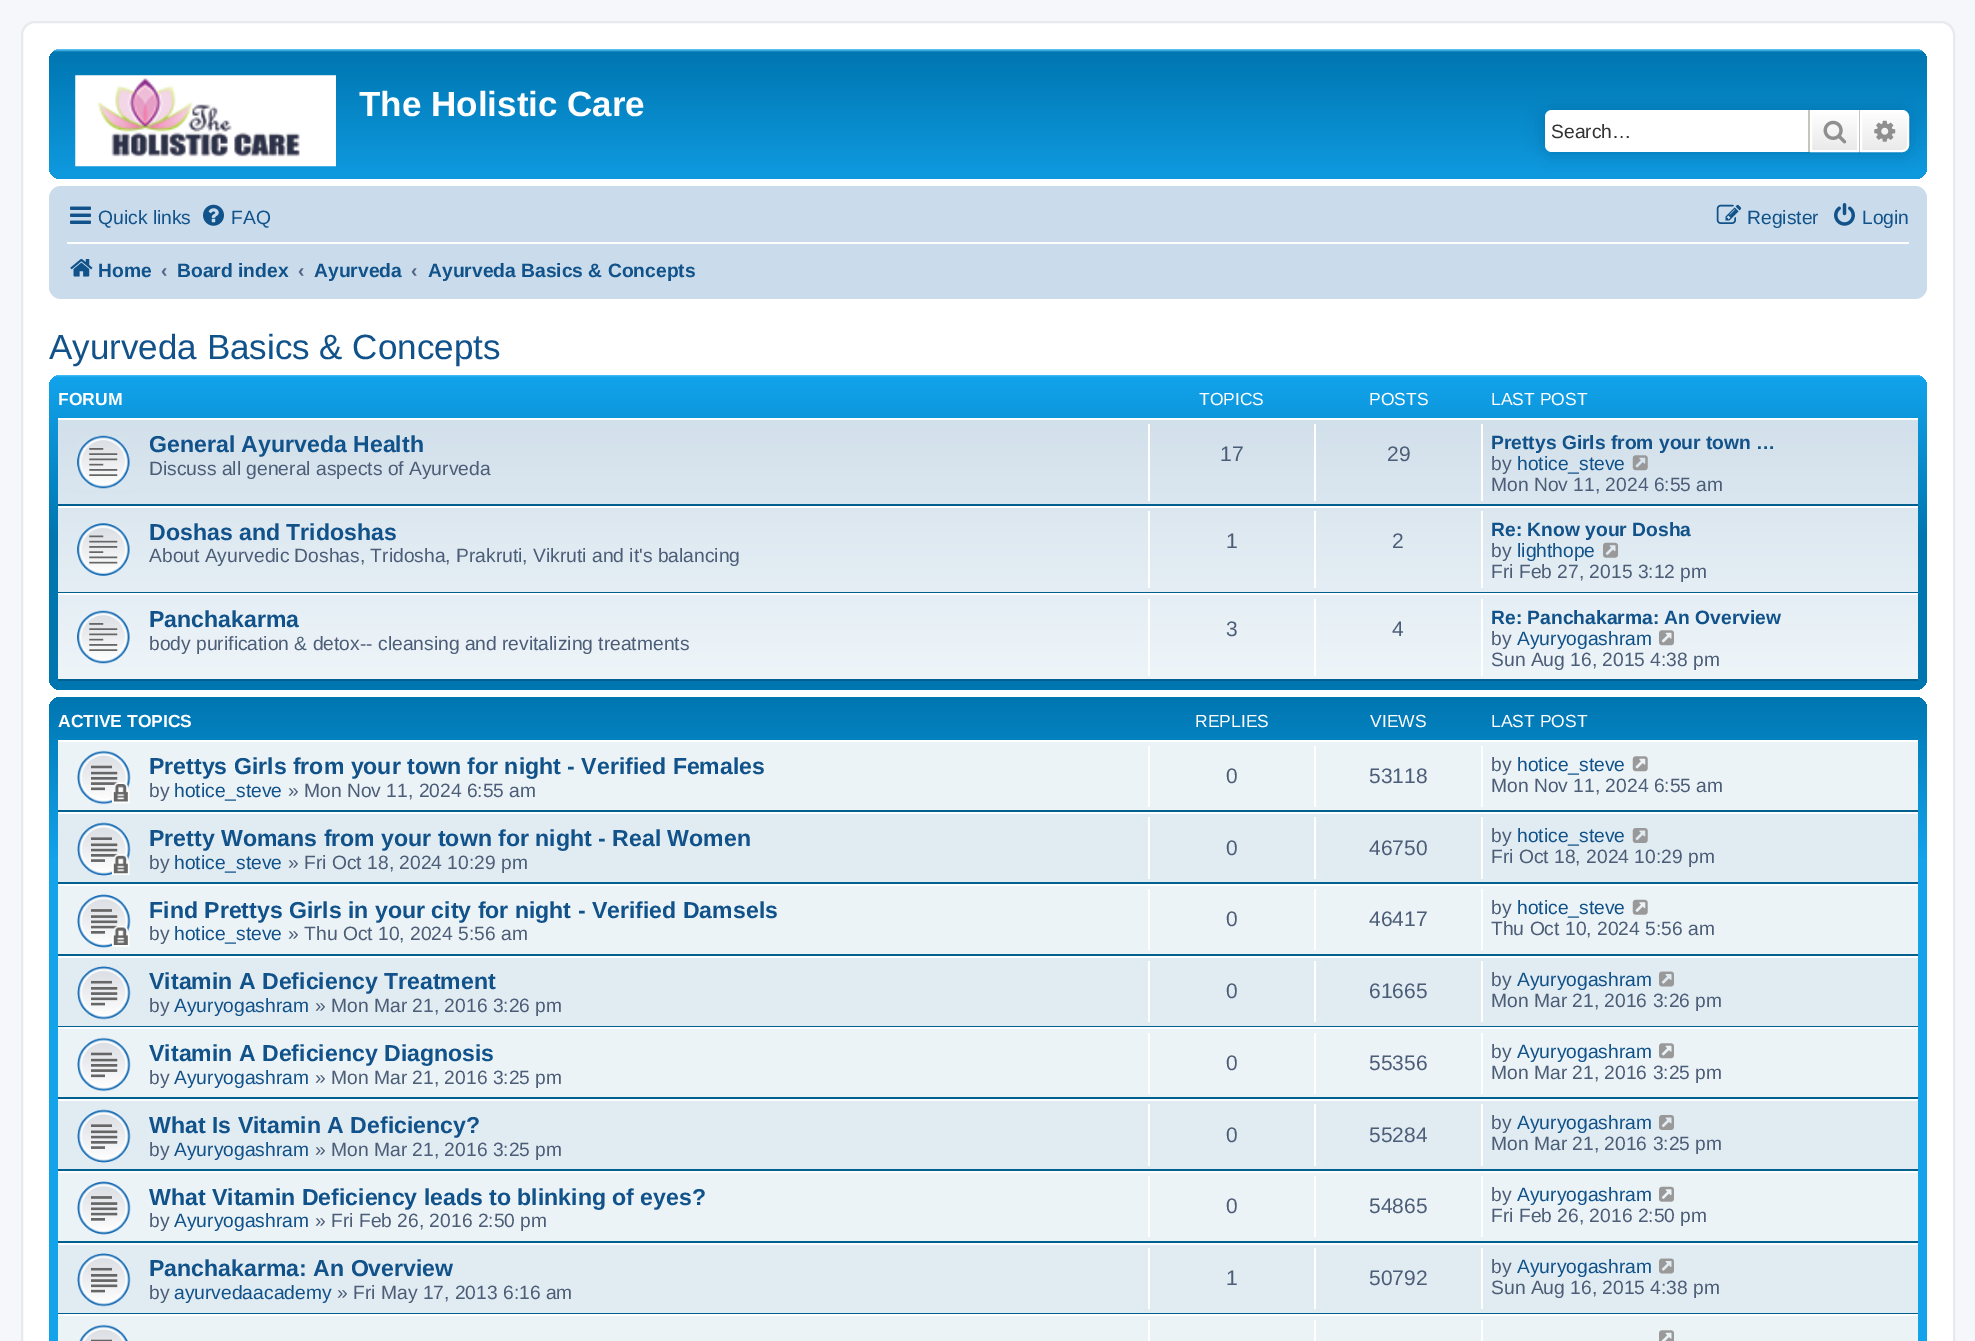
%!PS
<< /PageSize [1975 1341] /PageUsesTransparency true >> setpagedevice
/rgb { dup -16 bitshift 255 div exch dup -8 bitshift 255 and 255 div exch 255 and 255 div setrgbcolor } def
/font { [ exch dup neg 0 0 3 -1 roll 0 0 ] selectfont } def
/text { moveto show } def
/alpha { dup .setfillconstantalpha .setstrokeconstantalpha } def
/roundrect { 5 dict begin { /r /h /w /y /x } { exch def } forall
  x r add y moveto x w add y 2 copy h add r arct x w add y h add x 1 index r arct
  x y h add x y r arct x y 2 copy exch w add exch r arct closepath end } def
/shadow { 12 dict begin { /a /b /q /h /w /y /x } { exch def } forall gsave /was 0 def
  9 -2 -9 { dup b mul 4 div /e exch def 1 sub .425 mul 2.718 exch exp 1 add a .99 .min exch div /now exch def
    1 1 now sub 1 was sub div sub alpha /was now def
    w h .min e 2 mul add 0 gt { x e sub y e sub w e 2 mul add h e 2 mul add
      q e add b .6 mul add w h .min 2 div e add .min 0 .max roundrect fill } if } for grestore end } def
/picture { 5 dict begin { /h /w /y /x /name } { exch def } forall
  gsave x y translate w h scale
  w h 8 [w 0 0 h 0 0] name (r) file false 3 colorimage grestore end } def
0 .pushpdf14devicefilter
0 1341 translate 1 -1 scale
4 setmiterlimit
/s1 { /LiberationSans-Bold 35 font 16#FFFFFF rgb } def
/s2 { /LiberationSans-Regular 19.25 font 16#333333 rgb } def
/s3 { /LiberationSans-Regular 19.25 font 16#105289 rgb } def
/s4 { /LiberationSans-Bold 19.25 font 16#105289 rgb } def
/s5 { /LiberationSans-Bold 19.25 font 16#536482 rgb } def
/s6 { /LiberationSans-Regular 35 font 16#105289 rgb } def
/s7 { /LiberationSans-Bold 17.5 font 16#FFFFFF rgb } def
/s8 { /LiberationSans-Regular 17.5 font 16#FFFFFF rgb } def
/s9 { /LiberationSans-Bold 23.1 font 16#105289 rgb } def
/s10 { /LiberationSans-Regular 19.25 font 16#4C5D77 rgb } def
/s11 { /LiberationSans-Regular 21 font 16#4C5D77 rgb } def
16#F5F7FA rgb
0 0 1975 1341 rectfill
16#FFFFFF rgb
22 22 1932 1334 13 roundrect gsave fill grestore
16#E6E9ED rgb
2 setlinewidth
stroke
gsave 49 49 1878 130 12 roundrect clip newpath
<< /ShadingType 2 /ColorSpace /DeviceRGB /Coords [988 49 988 210] /Extend [true true] /Function << /FunctionType 3 /Domain [0 1] /Functions [<< /FunctionType 2 /Domain [0 1] /C0 [0.416 0.808 1] /C1 [0 0.463 0.694] /N 1 >> << /FunctionType 2 /Domain [0 1] /C0 [0 0.463 0.694] /C1 [0.071 0.639 0.922] /N 1 >>] /Bounds [0.02] /Encode [0 1 0 1] >> >> shfill grestore
(pic1.raw) 75 75 261 92 picture
s1
(The Holistic Care) 359 116 text
16#0075B0 rgb
1545 110 364 42 7 9 1 shadow
16#FFFFFF rgb
1552 110 moveto 1808 110 lineto 1808 152 lineto 1552 152 lineto 1548 152 1545 149 1545 145 curveto 1545 117 lineto 1545 113 1548 110 1552 110 curveto closepath fill
s2
(Search…) 1551 138 text
gsave 1812 112 moveto 1857 112 lineto 1857 150 lineto 1812 150 lineto closepath clip newpath
<< /ShadingType 2 /ColorSpace /DeviceRGB /Coords [1834 110 1834 152] /Extend [true true] /Function << /FunctionType 2 /Domain [0 1] /C0 [1 1 1] /C1 [0.914 0.914 0.914] /N 1 >> >> shfill grestore
16#FFFFFF rgb
1811 111 47 40 rectstroke
16#C7C3BF rgb
1859 110 1 42 rectfill
1808 110 2 42 rectfill
(pic2.raw) 1823 120 24 24 picture
gsave 1861 111 moveto 1902 111 lineto 1905.5 111 1908 113.5 1908 117 curveto 1908 145 lineto 1908 148.5 1905.5 151 1902 151 curveto 1861 151 lineto closepath clip newpath
<< /ShadingType 2 /ColorSpace /DeviceRGB /Coords [1885 110 1885 152] /Extend [true true] /Function << /FunctionType 2 /Domain [0 1] /C0 [1 1 1] /C1 [0.914 0.914 0.914] /N 1 >> >> shfill grestore
16#FFFFFF rgb
1861 111 moveto 1902 111 lineto 1905.5 111 1908 113.5 1908 117 curveto 1908 145 lineto 1908 148.5 1905.5 151 1902 151 curveto 1861 151 lineto closepath stroke
(pic3.raw) 1874 120 22 22 picture
16#CADCEB rgb
49 186 1878 113 12 roundrect fill
(pic4.raw) 70 206 21 18 picture
s3
(Quick links) 98 224 text
(pic5.raw) 203 204 21 22 picture
(FAQ) 231 224 text
(pic6.raw) 1716 204 26 20 picture
(Register) 1747 224 text
(pic7.raw) 1834 203 21 23 picture
(Login) 1862 224 text
16#FFFFFF rgb
67 242 1842 2 rectfill
(pic8.raw) 70 259 23 18 picture
s4
(Home) 98 277 text
s5
(‹) 161 277 text
s4
(Board index) 177 277 text
s5
(‹) 298 277 text
s4
(Ayurveda) 314 277 text
s5
(‹) 411 277 text
s4
(Ayurveda Basics & Concepts) 428 277 text
s6
(Ayurveda Basics & Concepts) 49 359 text
gsave 49 375 1878 315 12 roundrect clip newpath
<< /ShadingType 2 /ColorSpace /DeviceRGB /Coords [988 374 988 690] /Extend [true true] /Function << /FunctionType 3 /Domain [0 1] /Functions [<< /FunctionType 2 /Domain [0 1] /C0 [0.416 0.808 1] /C1 [0.071 0.639 0.922] /N 1 >> << /FunctionType 2 /Domain [0 1] /C0 [0.071 0.639 0.922] /C1 [0 0.463 0.694] /N 1 >> << /FunctionType 2 /Domain [0 1] /C0 [0 0.463 0.694] /C1 [0 0.463 0.694] /N 1 >>] /Bounds [0.01 0.51] /Encode [0 1 0 1 0 1] >> >> shfill grestore
s7
(FORUM) 58 405 text
s8
(TOPICS) 1199 405 text
(POSTS) 1369 405 text
(LAST POST) 1491 405 text
gsave 58 420 moveto 1918 420 lineto 1918 679 lineto 58 679 lineto closepath clip newpath
<< /ShadingType 2 /ColorSpace /DeviceRGB /Coords [988 418 988 681] /Extend [true true] /Function << /FunctionType 2 /Domain [0 1] /C0 [0.824 0.878 0.922] /C1 [0.933 0.961 0.976] /N 1 >> >> shfill grestore
58 418 1860 2 rectfill
16#00608F rgb
58 504 1860 2 rectfill
(pic9.raw) 77 435 53 54 picture
s9
(General Ayurveda Health) 149 452 text
s10
(Discuss all general aspects of Ayurveda) 149 475 text
16#FFFFFF rgb
1148 424 2 77 rectfill
s11
(17) 1220 461 text
16#FFFFFF rgb
1314 424 2 77 rectfill
s11
(29) 1387 461 text
16#FFFFFF rgb
1481 424 2 77 rectfill
s4
(Prettys Girls from your town …) 1491 449 text
s10
(by) 1491 470 text
s3
(hotice_steve) 1517 470 text
(pic10.raw) 1632 455 16 16 picture
s10
(Mon Nov 11, 2024 6:55 am) 1491 491 text
16#FFFFFF rgb
58 506 1860 2 rectfill
16#00608F rgb
58 592 1860 1 rectfill
(pic11.raw) 77 523 53 53 picture
s9
(Doshas and Tridoshas) 149 540 text
s10
(About Ayurvedic Doshas, Tridosha, Prakruti, Vikruti and it's balancing) 149 562 text
16#FFFFFF rgb
1148 511 2 77 rectfill
s11
(1) 1226 548 text
16#FFFFFF rgb
1314 511 2 77 rectfill
s11
(2) 1392 548 text
16#FFFFFF rgb
1481 511 2 77 rectfill
s4
(Re: Know your Dosha) 1491 536 text
s10
(by) 1491 557 text
s3
(lighthope) 1517 557 text
(pic12.raw) 1603 542 15 16 picture
s10
(Fri Feb 27, 2015 3:12 pm) 1491 578 text
16#FFFFFF rgb
58 593 1860 2 rectfill
16#00608F rgb
58 679 1860 2 rectfill
(pic13.raw) 77 610 53 54 picture
s9
(Panchakarma) 149 627 text
s10
(body purification & detox-- cleansing and revitalizing treatments) 149 650 text
16#FFFFFF rgb
1148 599 2 77 rectfill
s11
(3) 1226 636 text
16#FFFFFF rgb
1314 599 2 77 rectfill
s11
(4) 1392 636 text
16#FFFFFF rgb
1481 599 2 77 rectfill
s4
(Re: Panchakarma: An Overview) 1491 624 text
s10
(by) 1491 645 text
s3
(Ayuryogashram) 1517 645 text
(pic14.raw) 1659 630 15 16 picture
s10
(Sun Aug 16, 2015 4:38 pm) 1491 666 text
gsave 49 697 1878 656 12 roundrect clip newpath
<< /ShadingType 2 /ColorSpace /DeviceRGB /Coords [988 696 988 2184] /Extend [true true] /Function << /FunctionType 3 /Domain [0 1] /Functions [<< /FunctionType 2 /Domain [0 1] /C0 [0 0.463 0.694] /C1 [0.071 0.639 0.922] /N 1 >> << /FunctionType 2 /Domain [0 1] /C0 [0.071 0.639 0.922] /C1 [0.071 0.639 0.922] /N 1 >>] /Bounds [0.11] /Encode [0 1 0 1] >> >> shfill grestore
s7
(ACTIVE TOPICS) 58 727 text
s8
(REPLIES) 1195 727 text
(VIEWS) 1370 727 text
(LAST POST) 1491 727 text
16#ECF3F7 rgb
58 742 1860 68 rectfill
16#FFFFFF rgb
58 740 1860 2 rectfill
16#00608F rgb
58 810 1860 2 rectfill
(pic15.raw) 77 750 54 55 picture
s9
(Prettys Girls from your town for night - Verified Females) 149 774 text
s10
(by) 149 797 text
s3
(hotice_steve) 174 797 text
s10
(» Mon Nov 11, 2024 6:55 am) 288 797 text
16#FFFFFF rgb
1148 746 2 61 rectfill
s11
(0) 1226 783 text
16#FFFFFF rgb
1314 746 2 61 rectfill
s11
(53118) 1369 783 text
16#FFFFFF rgb
1481 746 2 61 rectfill
s10
(by) 1491 771 text
s3
(hotice_steve) 1517 771 text
(pic16.raw) 1632 756 16 16 picture
s10
(Mon Nov 11, 2024 6:55 am) 1491 792 text
16#E1EBF2 rgb
58 814 1860 68 rectfill
16#FFFFFF rgb
58 812 1860 2 rectfill
16#00608F rgb
58 882 1860 2 rectfill
(pic17.raw) 77 822 54 54 picture
s9
(Pretty Womans from your town for night - Real Women) 149 846 text
s10
(by) 149 869 text
s3
(hotice_steve) 174 869 text
s10
(» Fri Oct 18, 2024 10:29 pm) 288 869 text
16#FFFFFF rgb
1148 817 2 62 rectfill
s11
(0) 1226 855 text
16#FFFFFF rgb
1314 817 2 62 rectfill
s11
(46750) 1369 855 text
16#FFFFFF rgb
1481 817 2 62 rectfill
s10
(by) 1491 842 text
s3
(hotice_steve) 1517 842 text
(pic18.raw) 1632 828 16 15 picture
s10
(Fri Oct 18, 2024 10:29 pm) 1491 863 text
16#ECF3F7 rgb
58 886 1860 68 rectfill
16#FFFFFF rgb
58 884 1860 2 rectfill
16#00608F rgb
58 954 1860 2 rectfill
(pic19.raw) 77 894 54 54 picture
s9
(Find Prettys Girls in your city for night - Verified Damsels) 149 918 text
s10
(by) 149 940 text
s3
(hotice_steve) 174 940 text
s10
(» Thu Oct 10, 2024 5:56 am) 288 940 text
16#FFFFFF rgb
1148 889 2 61 rectfill
s11
(0) 1226 926 text
16#FFFFFF rgb
1314 889 2 61 rectfill
s11
(46417) 1369 926 text
16#FFFFFF rgb
1481 889 2 61 rectfill
s10
(by) 1491 914 text
s3
(hotice_steve) 1517 914 text
(pic20.raw) 1632 899 16 16 picture
s10
(Thu Oct 10, 2024 5:56 am) 1491 935 text
16#E1EBF2 rgb
58 958 1860 68 rectfill
16#FFFFFF rgb
58 956 1860 2 rectfill
16#00608F rgb
58 1026 1860 1 rectfill
(pic21.raw) 77 966 54 54 picture
s9
(Vitamin A Deficiency Treatment) 149 989 text
s10
(by) 149 1012 text
s3
(Ayuryogashram) 174 1012 text
s10
(» Mon Mar 21, 2016 3:26 pm) 315 1012 text
16#FFFFFF rgb
1148 961 2 61 rectfill
s11
(0) 1226 998 text
16#FFFFFF rgb
1314 961 2 61 rectfill
s11
(61665) 1369 998 text
16#FFFFFF rgb
1481 961 2 61 rectfill
s10
(by) 1491 986 text
s3
(Ayuryogashram) 1517 986 text
(pic22.raw) 1659 971 15 16 picture
s10
(Mon Mar 21, 2016 3:26 pm) 1491 1007 text
16#ECF3F7 rgb
58 1029 1860 68 rectfill
16#FFFFFF rgb
58 1027 1860 2 rectfill
16#00608F rgb
58 1097 1860 2 rectfill
(pic23.raw) 77 1037 54 55 picture
s9
(Vitamin A Deficiency Diagnosis) 149 1061 text
s10
(by) 149 1084 text
s3
(Ayuryogashram) 174 1084 text
s10
(» Mon Mar 21, 2016 3:25 pm) 315 1084 text
16#FFFFFF rgb
1148 1033 2 61 rectfill
s11
(0) 1226 1070 text
16#FFFFFF rgb
1314 1033 2 61 rectfill
s11
(55356) 1369 1070 text
16#FFFFFF rgb
1481 1033 2 61 rectfill
s10
(by) 1491 1058 text
s3
(Ayuryogashram) 1517 1058 text
(pic24.raw) 1659 1043 15 16 picture
s10
(Mon Mar 21, 2016 3:25 pm) 1491 1079 text
16#E1EBF2 rgb
58 1101 1860 68 rectfill
16#FFFFFF rgb
58 1099 1860 2 rectfill
16#00608F rgb
58 1169 1860 2 rectfill
(pic25.raw) 77 1109 54 54 picture
s9
(What Is Vitamin A Deficiency?) 149 1133 text
s10
(by) 149 1156 text
s3
(Ayuryogashram) 174 1156 text
s10
(» Mon Mar 21, 2016 3:25 pm) 315 1156 text
16#FFFFFF rgb
1148 1104 2 62 rectfill
s11
(0) 1226 1142 text
16#FFFFFF rgb
1314 1104 2 62 rectfill
s11
(55284) 1369 1142 text
16#FFFFFF rgb
1481 1104 2 62 rectfill
s10
(by) 1491 1129 text
s3
(Ayuryogashram) 1517 1129 text
(pic26.raw) 1659 1115 15 15 picture
s10
(Mon Mar 21, 2016 3:25 pm) 1491 1150 text
16#ECF3F7 rgb
58 1173 1860 68 rectfill
16#FFFFFF rgb
58 1171 1860 2 rectfill
16#00608F rgb
58 1241 1860 2 rectfill
(pic27.raw) 77 1181 54 54 picture
s9
(What Vitamin Deficiency leads to blinking of eyes?) 149 1205 text
s10
(by) 149 1227 text
s3
(Ayuryogashram) 174 1227 text
s10
(» Fri Feb 26, 2016 2:50 pm) 315 1227 text
16#FFFFFF rgb
1148 1176 2 61 rectfill
s11
(0) 1226 1213 text
16#FFFFFF rgb
1314 1176 2 61 rectfill
s11
(54865) 1369 1213 text
16#FFFFFF rgb
1481 1176 2 61 rectfill
s10
(by) 1491 1201 text
s3
(Ayuryogashram) 1517 1201 text
(pic28.raw) 1659 1186 15 16 picture
s10
(Fri Feb 26, 2016 2:50 pm) 1491 1222 text
16#E1EBF2 rgb
58 1245 1860 68 rectfill
16#FFFFFF rgb
58 1243 1860 2 rectfill
16#00608F rgb
58 1313 1860 1 rectfill
(pic21.raw) 77 1253 54 54 picture
s9
(Panchakarma: An Overview) 149 1276 text
s10
(by) 149 1299 text
s3
(ayurvedaacademy) 174 1299 text
s10
(» Fri May 17, 2013 6:16 am) 337 1299 text
16#FFFFFF rgb
1148 1248 2 61 rectfill
s11
(1) 1226 1285 text
16#FFFFFF rgb
1314 1248 2 61 rectfill
s11
(50792) 1369 1285 text
16#FFFFFF rgb
1481 1248 2 61 rectfill
s10
(by) 1491 1273 text
s3
(Ayuryogashram) 1517 1273 text
(pic29.raw) 1659 1258 15 16 picture
s10
(Sun Aug 16, 2015 4:38 pm) 1491 1294 text
16#ECF3F7 rgb
58 1316 1860 25 rectfill
16#FFFFFF rgb
58 1314 1860 2 rectfill
(pic30.raw) 79 1324 49 17 picture
1148 1320 2 21 rectfill
1314 1320 2 21 rectfill
1481 1320 2 21 rectfill
(pic31.raw) 1659 1330 15 11 picture
.poppdf14devicefilter showpage
